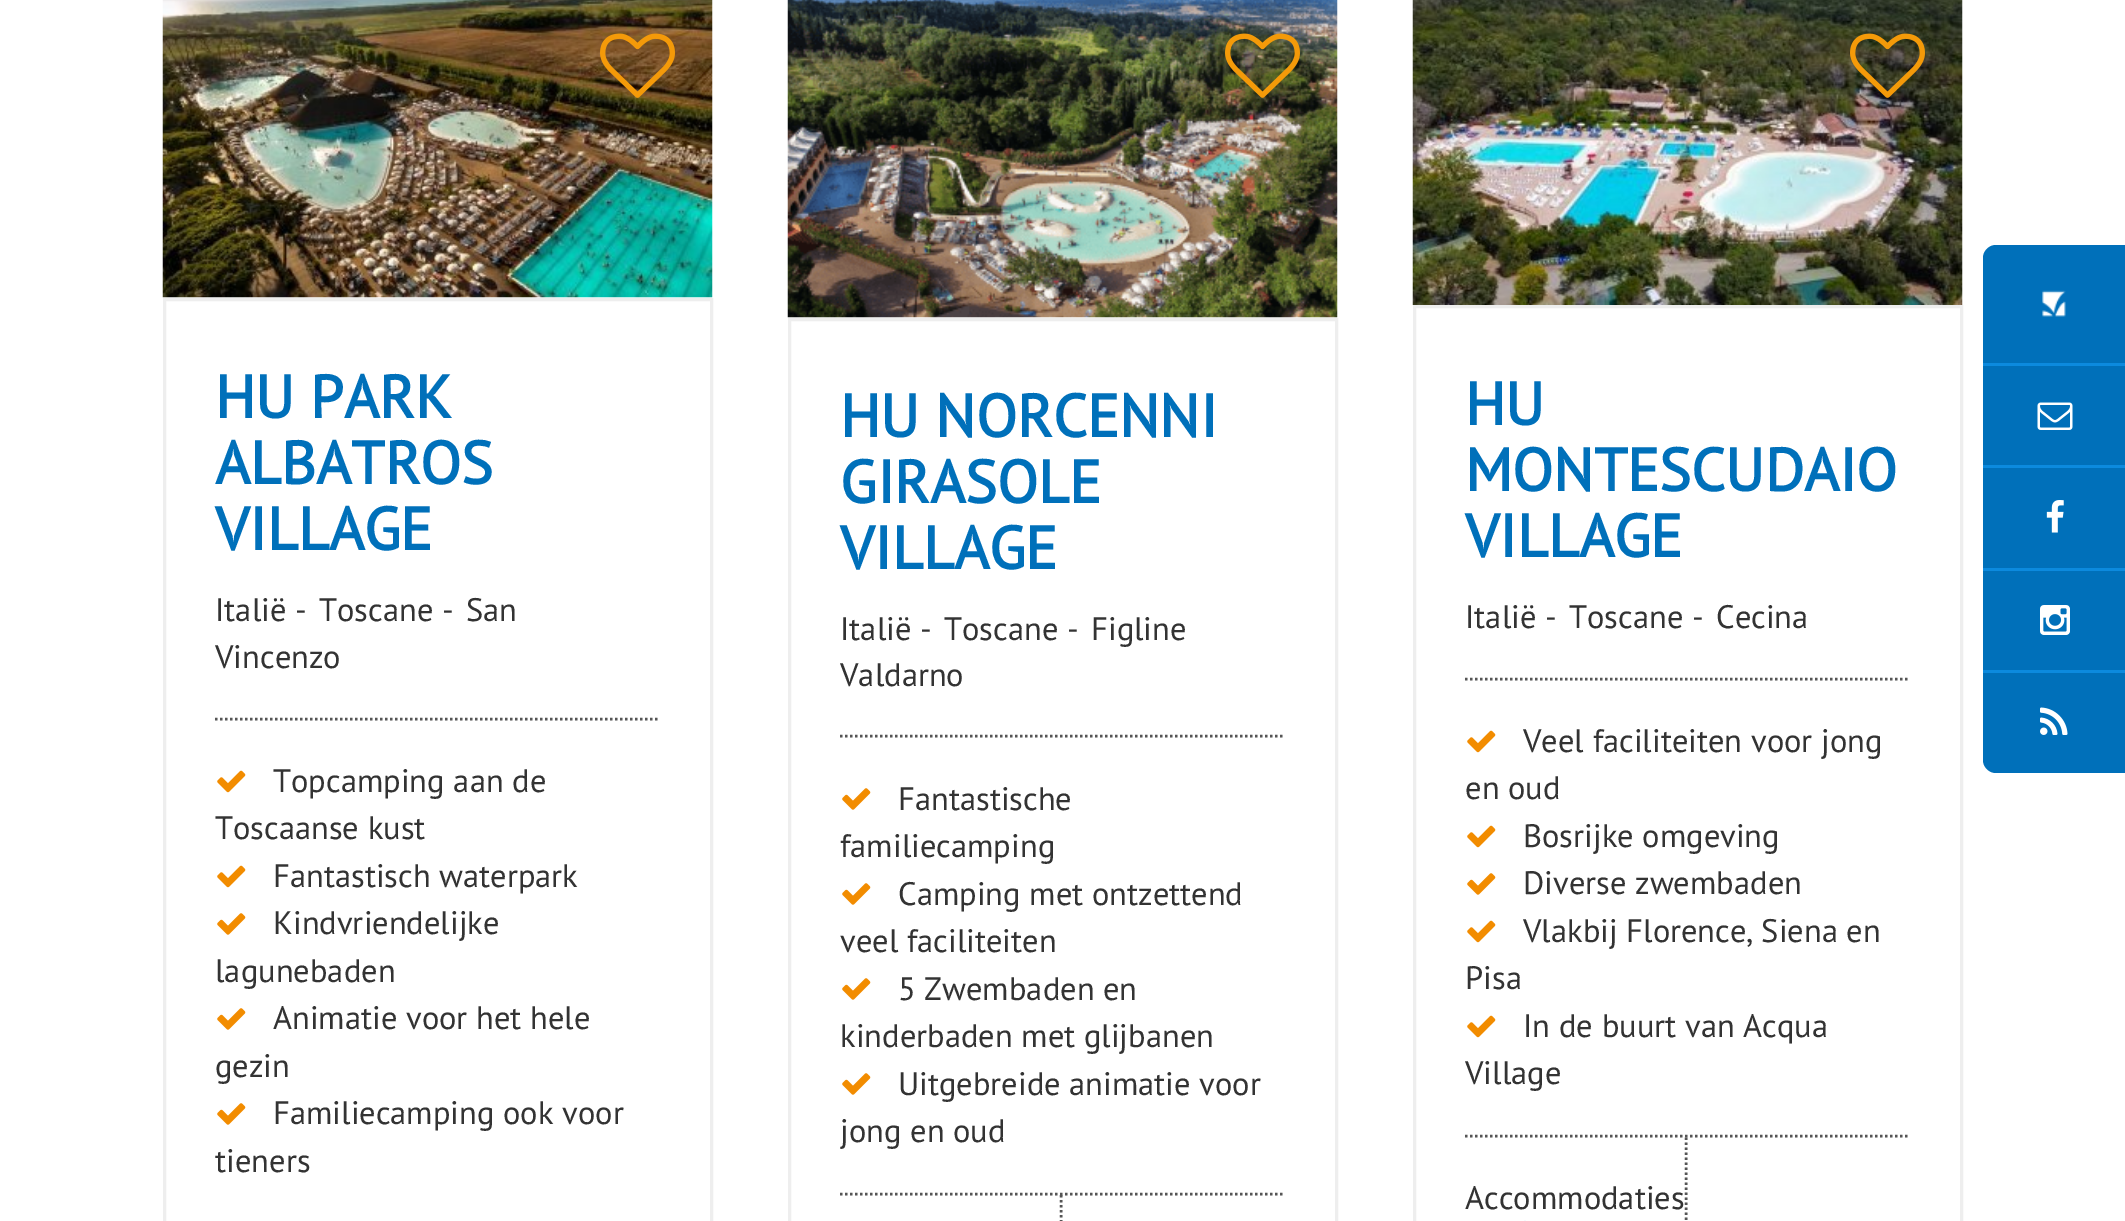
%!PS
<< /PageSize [2125 1221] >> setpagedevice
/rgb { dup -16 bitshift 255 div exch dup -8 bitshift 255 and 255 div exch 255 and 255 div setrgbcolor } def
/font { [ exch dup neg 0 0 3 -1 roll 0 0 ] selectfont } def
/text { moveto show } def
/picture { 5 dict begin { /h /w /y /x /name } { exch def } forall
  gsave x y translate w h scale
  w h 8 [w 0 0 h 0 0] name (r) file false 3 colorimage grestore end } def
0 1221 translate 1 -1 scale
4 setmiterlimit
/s1 { /PTSans-Bold 60 font 16#0070BA rgb } def
/s2 { /PTSans-Regular 32.5 font 16#333333 rgb } def
16#FFFFFF rgb
0 0 2125 1221 rectfill
(pic1.raw) 162 0 551 298 picture
(pic2.raw) 600 33 75 65 picture
16#EEEEEE rgb
3 setlinewidth
164.5 299.5 547 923 rectstroke
s1
(HU PARK) 215 418 text
(ALBATROS) 215 484 text
(VILLAGE) 215 550 text
s2
(Italië -) 215 621 text
(Toscane -) 319 621 text
(San) 466 621 text
(Vincenzo) 215 668 text
16#555555 rgb
2.5 setlinewidth
[2.5 2.5] 0 setdash
215 719 moveto 660 719 lineto stroke
(pic3.raw) 217 770 29 23 picture
s2
(Topcamping aan de) 273 792 text
(Toscaanse kust) 215 839 text
(pic3.raw) 217 865 29 23 picture
(Fantastisch waterpark) 273 887 text
(pic4.raw) 217 913 29 22 picture
(Kindvriendelijke) 273 934 text
(lagunebaden) 215 982 text
(pic4.raw) 217 1008 29 22 picture
(Animatie voor het hele) 273 1029 text
(gezin) 215 1077 text
(pic4.raw) 217 1103 29 22 picture
(Familiecamping ook voor) 273 1124 text
(tieners) 215 1172 text
(pic5.raw) 787 0 551 318 picture
(pic6.raw) 1225 33 75 65 picture
16#EEEEEE rgb
3 setlinewidth
[] 0 setdash
789.5 319.5 547 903 rectstroke
s1
(HU NORCENNI) 840 437 text
(GIRASOLE) 840 503 text
(VILLAGE) 840 569 text
s2
(Italië -) 840 640 text
(Toscane -) 944 640 text
(Figline) 1091 640 text
(Valdarno) 840 686 text
16#555555 rgb
2.5 setlinewidth
[2.5 2.5] 0 setdash
840 736 moveto 1285 736 lineto stroke
(pic4.raw) 842 788 29 22 picture
s2
(Fantastische) 898 810 text
(familiecamping) 840 857 text
(pic4.raw) 842 883 29 22 picture
(Camping met ontzettend) 898 905 text
(veel faciliteiten) 840 952 text
(pic4.raw) 842 978 29 22 picture
(5 Zwembaden en) 898 1000 text
(kinderbaden met glijbanen) 840 1047 text
(pic4.raw) 842 1073 29 22 picture
(Uitgebreide animatie voor) 898 1095 text
(jong en oud) 840 1142 text
16#555555 rgb
840 1194 moveto 1285 1194 lineto stroke
1061 1195 moveto 1061 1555 lineto stroke
(pic7.raw) 1412 0 551 305 picture
(pic8.raw) 1850 33 75 65 picture
16#EEEEEE rgb
3 setlinewidth
[] 0 setdash
1414.5 306.5 547 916 rectstroke
s1
(HU) 1465 425 text
(MONTESCUDAIO) 1465 491 text
(VILLAGE) 1465 557 text
s2
(Italië -) 1465 628 text
(Toscane -) 1569 628 text
(Cecina) 1716 628 text
16#555555 rgb
2.5 setlinewidth
[2.5 2.5] 0 setdash
1465 679 moveto 1910 679 lineto stroke
(pic3.raw) 1467 730 29 23 picture
s2
(Veel faciliteiten voor jong) 1523 752 text
(en oud) 1465 799 text
(pic3.raw) 1467 825 29 23 picture
(Bosrijke omgeving) 1523 847 text
(pic4.raw) 1467 873 29 22 picture
(Diverse zwembaden) 1523 894 text
(pic3.raw) 1467 920 29 23 picture
(Vlakbij Florence, Siena en) 1523 942 text
(Pisa) 1465 989 text
(pic3.raw) 1467 1015 29 23 picture
(In de buurt van Acqua) 1523 1037 text
(Village) 1465 1084 text
16#555555 rgb
1465 1136 moveto 1910 1136 lineto stroke
1686 1137.5 moveto 1686 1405 lineto stroke
s2
(Accommodaties) 1465 1209 text
(pic9.raw) 1524 1220 2 1 picture
16#0070BA rgb
1996 245 moveto 2125 245 lineto 2125 773 lineto 1996 773 lineto 1989 773 1983 767 1983 760 curveto 1983 258 lineto 1983 251 1989 245 1996 245 curveto closepath fill
16#0C8ADE rgb
1983 363 142 3 rectfill
(pic10.raw) 2042 290 24 27 picture
1983 465 142 3 rectfill
(pic11.raw) 2037 402 36 28 picture
1983 568 142 3 rectfill
(pic12.raw) 2046 500 18 33 picture
1983 670 142 3 rectfill
(pic13.raw) 2040 605 30 30 picture
(pic14.raw) 2040 707 28 28 picture
showpage
